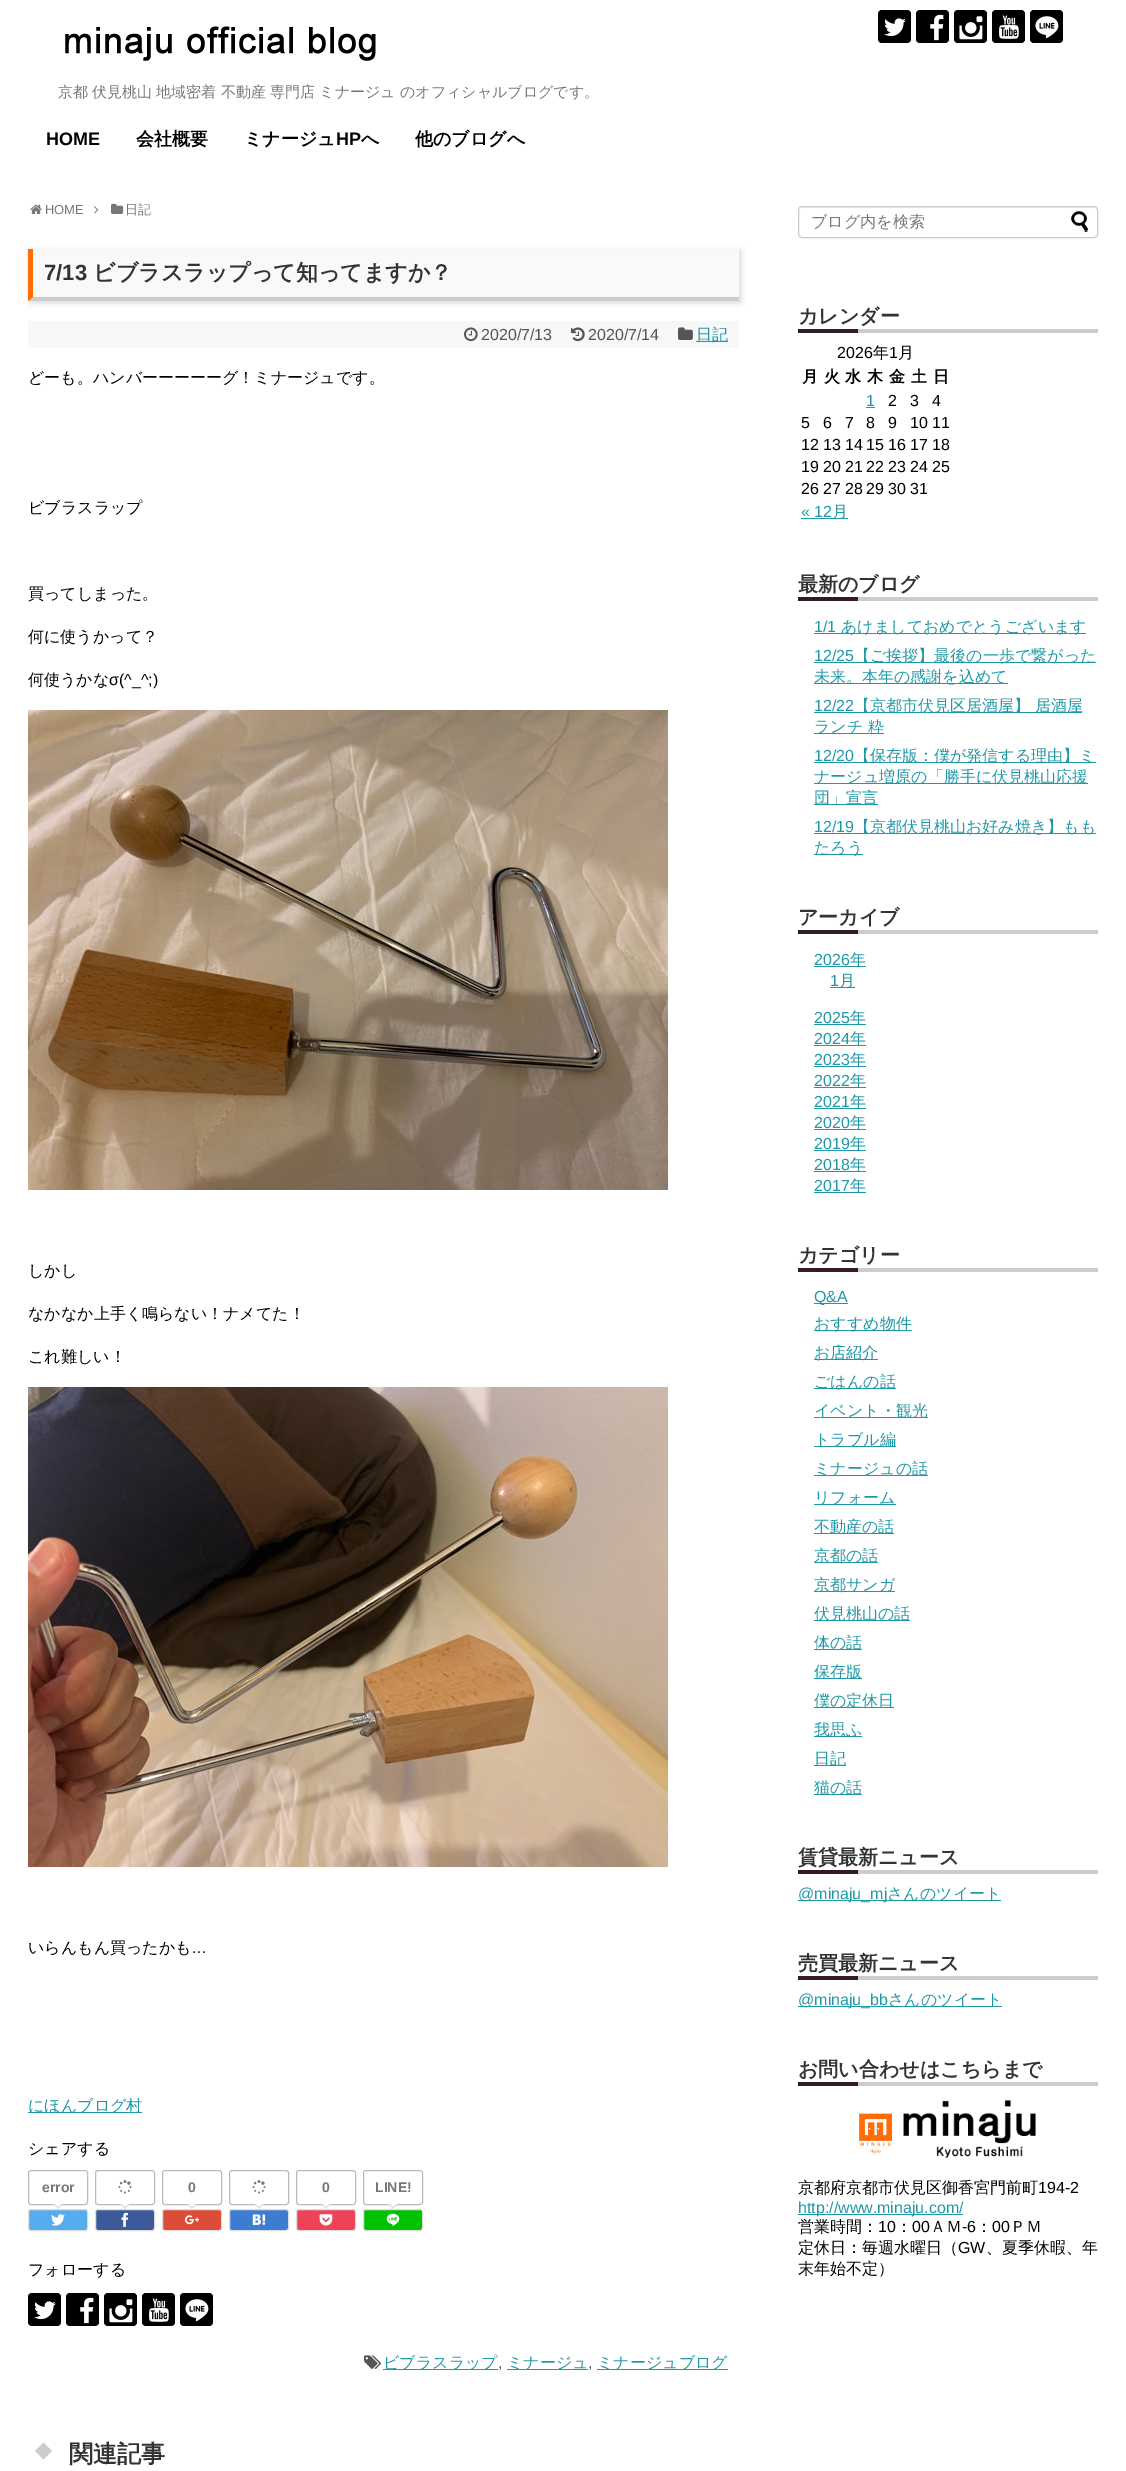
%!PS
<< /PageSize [1126 2471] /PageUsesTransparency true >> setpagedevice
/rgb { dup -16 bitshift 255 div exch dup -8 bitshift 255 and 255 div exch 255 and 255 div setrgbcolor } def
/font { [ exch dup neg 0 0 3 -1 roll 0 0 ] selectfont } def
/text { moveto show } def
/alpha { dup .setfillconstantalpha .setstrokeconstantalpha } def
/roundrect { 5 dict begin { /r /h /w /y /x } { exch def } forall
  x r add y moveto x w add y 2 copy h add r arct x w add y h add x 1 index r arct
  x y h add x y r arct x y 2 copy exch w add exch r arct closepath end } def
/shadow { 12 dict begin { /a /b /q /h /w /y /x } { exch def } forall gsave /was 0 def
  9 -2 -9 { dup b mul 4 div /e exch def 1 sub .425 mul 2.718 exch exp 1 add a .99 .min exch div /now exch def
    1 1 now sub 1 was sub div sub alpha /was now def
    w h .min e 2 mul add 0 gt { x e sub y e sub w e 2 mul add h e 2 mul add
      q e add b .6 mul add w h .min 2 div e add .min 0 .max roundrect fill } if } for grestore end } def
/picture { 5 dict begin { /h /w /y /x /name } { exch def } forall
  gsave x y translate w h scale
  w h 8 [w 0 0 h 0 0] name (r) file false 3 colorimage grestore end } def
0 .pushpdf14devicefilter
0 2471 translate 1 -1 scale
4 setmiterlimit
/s1 { /LiberationSans-Bold 18 font 16#000000 rgb } def
/s2 { /WenQuanYiZenHei-Bold 18 font 16#000000 rgb } def
/s3 { /LiberationSans-Regular 13 font 16#777777 rgb } def
/s4 { /WenQuanYiZenHei-Medium 13 font 16#777777 rgb } def
/s5 { /LiberationSans-Bold 22 font 16#333333 rgb } def
/s6 { /WenQuanYiZenHei-Bold 22 font 16#333333 rgb } def
/s7 { /LiberationSans-Regular 16 font 16#555555 rgb } def
/s8 { /WenQuanYiZenHei-Medium 16 font 16#2098A8 rgb } def
/s9 { /WenQuanYiZenHei-Medium 16 font 16#000000 rgb } def
/s10 { /LiberationSans-Regular 16 font 16#000000 rgb } def
/s11 { /LiberationSans-Bold 14 font 16#777777 rgb } def
/s12 { /WenQuanYiZenHei-Bold 24 font 16#333333 rgb } def
/s13 { /WenQuanYiZenHei-Medium 16 font 16#777777 rgb } def
/s14 { /WenQuanYiZenHei-Bold 20 font 16#333333 rgb } def
/s15 { /WenQuanYiZenHei-Bold 16 font 16#000000 rgb } def
/s16 { /LiberationSans-Regular 16 font 16#2098A8 rgb } def
16#FFFFFF rgb
0 0 1126 2471 rectfill
16#000000 rgb
878 10 33 33 4 roundrect fill
(pic1.raw) 884 18 22 19 picture
916 10 33 33 4 roundrect fill
(pic2.raw) 930 14 14 27 picture
954 10 33 33 4 roundrect fill
(pic3.raw) 959 16 24 24 picture
992 10 33 33 4 roundrect fill
(pic4.raw) 999 15 20 24 picture
1030 10 33 33 4 roundrect fill
(pic5.raw) 1035 16 24 23 picture
(pic6.raw) 65 26 311 35 picture
/WenQuanYiZenHei-Medium 15 font
16#777777 rgb
58 97 moveto -0.25 0 32 (京都 伏見桃山 地域密着 不動産 専門店 ミナージュ のオフィシャルブログです。) widthshow
s1
(HOME) 46 145 text
s2
(会社概要) 136 145 text
(ミナージュ) 244 145 text
s1
(HP) 336 145 text
s2
(へ) 361 145 text
(他のブログへ) 415 145 text
(pic7.raw) 30 204 12 10 picture
s3
(HOME) 45 214 text
(pic8.raw) 94 206 5 8 picture
(pic9.raw) 111 203 13 11 picture
s4
(日記) 125 214 text
16#000000 rgb
30 251 711 52 0 3 0.15 shadow
16#F9F9F9 rgb
28 249 711 52 rectfill
16#CCCCCC rgb
739 301 moveto 28 301 lineto 33 297 lineto 739 297 lineto closepath fill
16#FE6D08 rgb
28 301 moveto 28 249 lineto 33 249 lineto 33 297 lineto closepath fill
s5
(7/13) 44 280 text
s6
(ビブラスラップって知ってますか？) 93 280 text
16#F7F7F7 rgb
28 321 711 27 rectfill
(pic10.raw) 464 327 14 15 picture
s7
(2020/7/13) 481 340 text
(pic11.raw) 571 327 14 15 picture
(2020/7/14) 588 340 text
(pic12.raw) 678 327 15 13 picture
16#2098A8 rgb
696 341 32 1 rectfill
s8
(日記) 696 340 text
s9
(どーも。ハンバーーーーーグ！ミナージュです。) 28 383 text
(ビブラスラップ) 28 513 text
(買ってしまった。) 28 599 text
(何に使うかって？) 28 642 text
(何使うかな) 28 685 text
s10
(σ\(^_^;\)) 109 685 text
(pic13.raw) 28 710 640 480 picture
s9
(しかし) 28 1276 text
(なかなか上手く鳴らない！ナメてた！) 28 1319 text
(これ難しい！) 28 1362 text
(pic14.raw) 28 1387 640 480 picture
(いらんもん買ったかも) 28 1953 text
s10
(…) 191 1953 text
16#2098A8 rgb
28 2112 114 1 rectfill
s8
(にほんブログ村) 28 2111 text
s9
(シェアする) 28 2154 text
16#BBBBBB rgb
28.5 2170.5 59 34 2.5 roundrect stroke
s11
(error) 42 2192 text
16#DDDDDD rgb
53 2204 moveto 63 2204 lineto 58 2209 lineto closepath fill
16#FFFFFF rgb
55 2204 moveto 61 2204 lineto 58 2207 lineto closepath fill
16#55ACEE rgb
28.5 2209.5 59 21 2.5 roundrect gsave fill grestore
16#DDDDDD rgb
stroke
(pic15.raw) 51 2214 14 12 picture
16#BBBBBB rgb
95.5 2170.5 59 34 2.5 roundrect stroke
(pic16.raw) 118 2180 14 14 picture
16#DDDDDD rgb
120 2204 moveto 130 2204 lineto 125 2209 lineto closepath fill
16#FFFFFF rgb
122 2204 moveto 128 2204 lineto 125 2207 lineto closepath fill
16#3C5A99 rgb
95.5 2209.5 59 21 2.5 roundrect gsave fill grestore
16#DDDDDD rgb
stroke
(pic17.raw) 121 2212 8 15 picture
16#BBBBBB rgb
162.5 2170.5 59 34 2.5 roundrect stroke
s11
(0) 188 2192 text
16#DDDDDD rgb
187 2204 moveto 197 2204 lineto 192 2209 lineto closepath fill
16#FFFFFF rgb
189 2204 moveto 195 2204 lineto 192 2207 lineto closepath fill
16#DD4B39 rgb
162.5 2209.5 59 21 2.5 roundrect gsave fill grestore
16#DDDDDD rgb
stroke
(pic18.raw) 185 2215 14 10 picture
16#BBBBBB rgb
229.5 2170.5 59 34 2.5 roundrect stroke
(pic16.raw) 252 2180 14 14 picture
16#DDDDDD rgb
254 2204 moveto 264 2204 lineto 259 2209 lineto closepath fill
16#FFFFFF rgb
256 2204 moveto 262 2204 lineto 259 2207 lineto closepath fill
16#3C7DD1 rgb
229.5 2209.5 59 21 2.5 roundrect gsave fill grestore
16#DDDDDD rgb
stroke
(pic19.raw) 252 2214 14 11 picture
16#BBBBBB rgb
296.5 2170.5 59 34 2.5 roundrect stroke
s11
(0) 322 2192 text
16#DDDDDD rgb
321 2204 moveto 331 2204 lineto 326 2209 lineto closepath fill
16#FFFFFF rgb
323 2204 moveto 329 2204 lineto 326 2207 lineto closepath fill
16#EE4257 rgb
296.5 2209.5 59 21 2.5 roundrect gsave fill grestore
16#DDDDDD rgb
stroke
(pic20.raw) 319 2214 14 12 picture
16#BBBBBB rgb
363.5 2170.5 59 34 2.5 roundrect stroke
s11
(LINE!) 375 2192 text
16#DDDDDD rgb
388 2204 moveto 398 2204 lineto 393 2209 lineto closepath fill
16#FFFFFF rgb
390 2204 moveto 396 2204 lineto 393 2207 lineto closepath fill
16#00C300 rgb
363.5 2209.5 59 21 2.5 roundrect gsave fill grestore
16#DDDDDD rgb
stroke
(pic21.raw) 386 2213 14 13 picture
s9
(フォローする) 28 2275 text
28 2293 33 33 4 roundrect fill
(pic1.raw) 34 2301 22 19 picture
66 2293 33 33 4 roundrect fill
(pic2.raw) 80 2297 14 27 picture
104 2293 33 33 4 roundrect fill
(pic3.raw) 109 2299 24 24 picture
142 2293 33 33 4 roundrect fill
(pic4.raw) 149 2298 20 24 picture
180 2293 33 33 4 roundrect fill
(pic5.raw) 185 2299 24 23 picture
(pic22.raw) 364 2355 17 14 picture
16#2098A8 rgb
383 2369 115 1 rectfill
(ビブラスラップ) 383 2368 text
s7
(,) 498 2368 text
16#2098A8 rgb
507 2369 81 1 rectfill
s8
(ミナージュ) 507 2368 text
s7
(,) 588 2368 text
16#2098A8 rgb
597 2369 131 1 rectfill
s8
(ミナージュブログ) 597 2368 text
16#CCCCCC rgb
43.5 2442.5 moveto 52 2451 lineto 43.5 2459.5 lineto 35 2451 lineto closepath fill
s12
(関連記事) 69 2462 text
16#ECECEC rgb
802 208 moveto 1094 208 lineto 1096 208 1097 209 1097 211 curveto 1096 208 lineto 1095 207 lineto 802 207 lineto 800 207 799 209 799 211 curveto 799 209 800 208 802 208 curveto closepath fill
16#CCCCCC rgb
798.5 206.5 299 31 3.5 roundrect stroke
s13
(ブログ内を検索) 811 227 text
(pic23.raw) 1071 211 17 21 picture
16#CCCCCC rgb
858 329 240 4 rectfill
s14
(カレンダー) 798 323 text
16#351C1C rgb
798 329 60 4 rectfill
s10
(2026) 837 358 text
s9
(年) 873 358 text
s10
(1) 889 358 text
s9
(月) 898 358 text
s15
(月) 802 382 text
(火) 824 382 text
(水) 845 382 text
(木) 867 382 text
(金) 889 382 text
(土) 911 382 text
(日) 933 382 text
s16
(1) 866 406 text
866 407 9 1 rectfill
s10
(2) 888 406 text
(3) 910 406 text
(4) 932 406 text
(5) 801 428 text
(6) 823 428 text
(7) 845 428 text
(8) 866 428 text
(9) 888 428 text
(10) 910 428 text
(11) 932 428 text
(12) 801 450 text
(13) 823 450 text
(14) 845 450 text
(15) 866 450 text
(16) 888 450 text
(17) 910 450 text
(18) 932 450 text
(19) 801 472 text
(20) 823 472 text
(21) 845 472 text
(22) 866 472 text
(23) 888 472 text
(24) 910 472 text
(25) 932 472 text
(26) 801 494 text
(27) 823 494 text
(28) 845 494 text
(29) 866 494 text
(30) 888 494 text
(31) 910 494 text
s16
(« 12) 801 517 text
801 518 47 1 rectfill
s8
(月) 832 517 text
16#CCCCCC rgb
858 597 240 4 rectfill
s14
(最新のブログ) 798 591 text
16#351C1C rgb
798 597 60 4 rectfill
s16
(1/1) 814 632 text
814 633 272 1 rectfill
s8
(あけましておめでとうございます) 841 632 text
s16
(12/25) 814 661 text
814 662 282 1 rectfill
s8
(【ご挨拶】最後の一歩で繋がった) 854 661 text
814 683 194 1 rectfill
(未来。本年の感謝を込めて) 814 682 text
s16
(12/22) 814 711 text
814 712 268 1 rectfill
s8
(【京都市伏見区居酒屋】 居酒屋) 854 711 text
814 733 70 1 rectfill
(ランチ 粋) 814 732 text
s16
(12/20) 814 761 text
814 762 282 1 rectfill
s8
(【保存版：僕が発信する理由】ミ) 854 761 text
814 783 274 1 rectfill
(ナージュ増原の「勝手に伏見桃山応援) 814 782 text
814 804 64 1 rectfill
(団」宣言) 814 803 text
s16
(12/19) 814 832 text
814 833 282 1 rectfill
s8
(【京都伏見桃山お好み焼き】もも) 854 832 text
814 854 49 1 rectfill
(たろう) 814 853 text
16#CCCCCC rgb
858 930 240 4 rectfill
s14
(アーカイブ) 798 924 text
16#351C1C rgb
798 930 60 4 rectfill
s16
(2026) 814 965 text
814 966 52 1 rectfill
s8
(年) 850 965 text
s16
(1) 830 986 text
830 987 25 1 rectfill
s8
(月) 839 986 text
s16
(2025) 814 1023 text
814 1024 52 1 rectfill
s8
(年) 850 1023 text
s16
(2024) 814 1044 text
814 1045 52 1 rectfill
s8
(年) 850 1044 text
s16
(2023) 814 1065 text
814 1066 52 1 rectfill
s8
(年) 850 1065 text
s16
(2022) 814 1086 text
814 1087 52 1 rectfill
s8
(年) 850 1086 text
s16
(2021) 814 1107 text
814 1108 52 1 rectfill
s8
(年) 850 1107 text
s16
(2020) 814 1128 text
814 1129 52 1 rectfill
s8
(年) 850 1128 text
s16
(2019) 814 1149 text
814 1150 52 1 rectfill
s8
(年) 850 1149 text
s16
(2018) 814 1170 text
814 1171 52 1 rectfill
s8
(年) 850 1170 text
s16
(2017) 814 1191 text
814 1192 52 1 rectfill
s8
(年) 850 1191 text
16#CCCCCC rgb
858 1268 240 4 rectfill
s14
(カテゴリー) 798 1262 text
16#351C1C rgb
798 1268 60 4 rectfill
16#2098A8 rgb
814 1303 34 1 rectfill
s16
(Q&A) 814 1302 text
814 1330 98 1 rectfill
s8
(おすすめ物件) 814 1329 text
814 1359 64 1 rectfill
(お店紹介) 814 1358 text
814 1388 82 1 rectfill
(ごはんの話) 814 1387 text
814 1417 114 1 rectfill
(イベント・観光) 814 1416 text
814 1446 82 1 rectfill
(トラブル編) 814 1445 text
814 1475 114 1 rectfill
(ミナージュの話) 814 1474 text
814 1504 82 1 rectfill
(リフォーム) 814 1503 text
814 1533 80 1 rectfill
(不動産の話) 814 1532 text
814 1562 64 1 rectfill
(京都の話) 814 1561 text
814 1591 81 1 rectfill
(京都サンガ) 814 1590 text
814 1620 96 1 rectfill
(伏見桃山の話) 814 1619 text
814 1649 48 1 rectfill
(体の話) 814 1648 text
814 1678 48 1 rectfill
(保存版) 814 1677 text
814 1707 80 1 rectfill
(僕の定休日) 814 1706 text
814 1736 48 1 rectfill
(我思ふ) 814 1735 text
814 1765 32 1 rectfill
(日記) 814 1764 text
814 1794 48 1 rectfill
(猫の話) 814 1793 text
16#CCCCCC rgb
858 1870 240 4 rectfill
s14
(賃貸最新ニュース) 798 1864 text
16#351C1C rgb
798 1870 60 4 rectfill
16#2098A8 rgb
798 1900 203 1 rectfill
s16
(@minaju_mj) 798 1899 text
s8
(さんのツイート) 887 1899 text
16#CCCCCC rgb
858 1976 240 4 rectfill
s14
(売買最新ニュース) 798 1970 text
16#351C1C rgb
798 1976 60 4 rectfill
16#2098A8 rgb
798 2006 204 1 rectfill
s16
(@minaju_bb) 798 2005 text
s8
(さんのツイート) 888 2005 text
16#CCCCCC rgb
858 2082 240 4 rectfill
s14
(お問い合わせはこちらまで) 798 2076 text
16#351C1C rgb
798 2082 60 4 rectfill
(pic24.raw) 859 2100 177 58 picture
s9
(京都府京都市伏見区御香宮門前町) 798 2193 text
s10
(194-2) 1038 2193 text
16#2098A8 rgb
798 2214 165 1 rectfill
(http://www.minaju.com/) 798 2213 text
s9
(営業時間：) 798 2232 text
s10
(10) 878 2232 text
s9
(：) 896 2232 text
s10
(00) 912 2232 text
s9
(ＡＭ) 930 2232 text
s10
(-6) 962 2232 text
s9
(：) 976 2232 text
s10
(00) 992 2232 text
s9
(ＰＭ) 1010 2232 text
(定休日：毎週水曜日（) 798 2253 text
s10
(GW) 958 2253 text
s9
(、夏季休暇、年) 986 2253 text
(末年始不定）) 798 2274 text
.poppdf14devicefilter showpage
